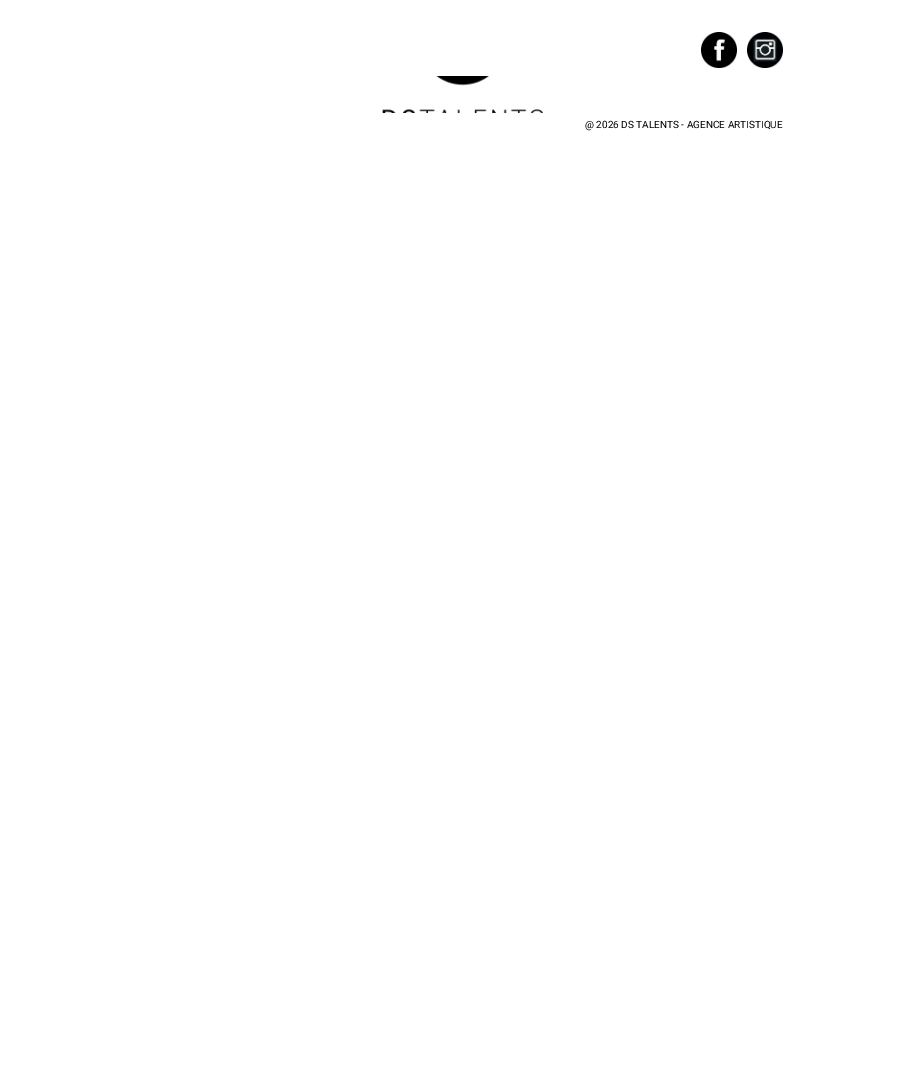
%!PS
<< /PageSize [921 1085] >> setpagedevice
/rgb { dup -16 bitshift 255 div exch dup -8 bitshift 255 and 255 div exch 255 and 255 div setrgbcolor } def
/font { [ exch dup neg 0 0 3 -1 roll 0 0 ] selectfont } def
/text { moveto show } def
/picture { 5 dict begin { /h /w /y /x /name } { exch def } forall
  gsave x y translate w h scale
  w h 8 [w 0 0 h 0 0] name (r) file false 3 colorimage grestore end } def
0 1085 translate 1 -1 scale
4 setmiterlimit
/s1 { /Roboto-Regular 10 font 16#000000 rgb } def
16#FFFFFF rgb
0 0 921 1085 rectfill
(pic1.raw) 701 32 36 36 picture
(pic2.raw) 747 32 36 36 picture
(pic3.raw) 382 76 162 37 picture
s1
(@ 2026 DS TALENTS - AGENCE ARTISTIQUE) 585 128 text
showpage
